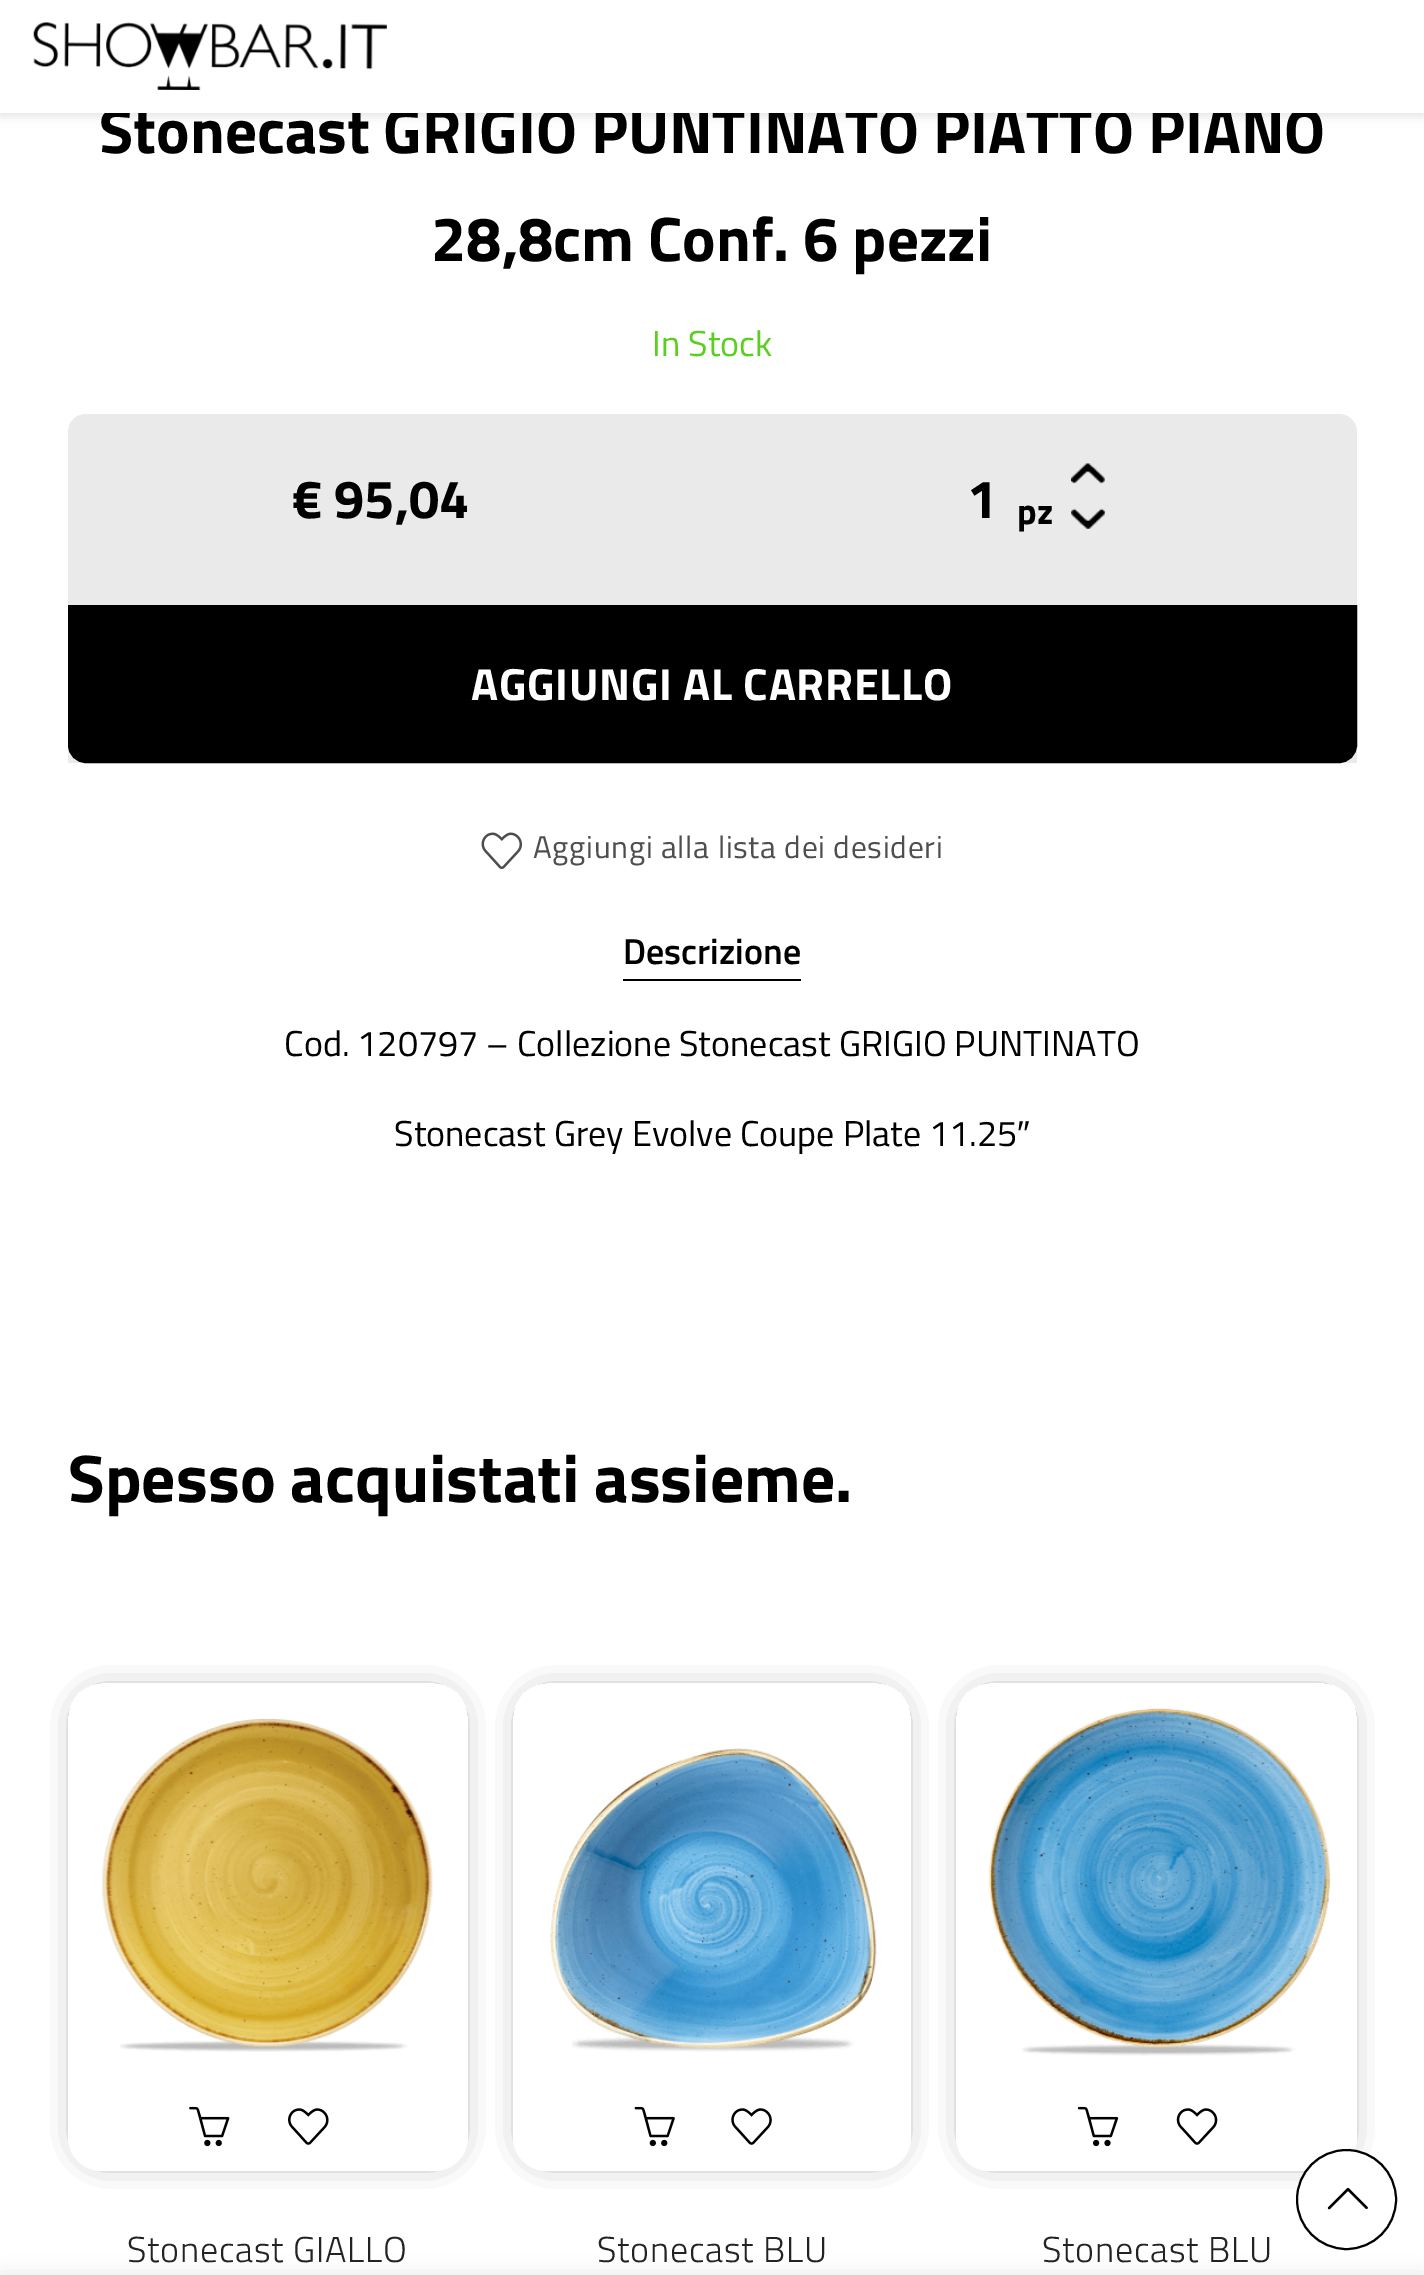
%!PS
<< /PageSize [1424 2275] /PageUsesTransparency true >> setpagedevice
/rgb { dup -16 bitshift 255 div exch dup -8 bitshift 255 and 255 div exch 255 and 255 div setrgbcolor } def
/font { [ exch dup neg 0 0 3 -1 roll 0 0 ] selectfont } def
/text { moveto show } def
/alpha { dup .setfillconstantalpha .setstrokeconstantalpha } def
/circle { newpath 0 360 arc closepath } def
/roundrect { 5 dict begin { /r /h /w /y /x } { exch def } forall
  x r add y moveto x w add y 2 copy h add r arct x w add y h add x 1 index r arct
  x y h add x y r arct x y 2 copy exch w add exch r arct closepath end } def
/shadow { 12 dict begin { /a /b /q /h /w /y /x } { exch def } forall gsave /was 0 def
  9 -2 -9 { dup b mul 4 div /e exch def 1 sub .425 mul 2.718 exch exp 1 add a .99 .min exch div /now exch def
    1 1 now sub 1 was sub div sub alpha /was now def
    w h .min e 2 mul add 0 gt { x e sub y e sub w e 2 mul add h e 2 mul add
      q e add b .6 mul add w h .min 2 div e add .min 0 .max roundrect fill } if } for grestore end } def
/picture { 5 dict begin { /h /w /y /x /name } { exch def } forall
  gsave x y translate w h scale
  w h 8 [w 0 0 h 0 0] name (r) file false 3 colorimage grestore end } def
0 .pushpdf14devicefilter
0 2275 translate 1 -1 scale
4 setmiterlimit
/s1 { /TitilliumWeb-Bold 63 font 16#000000 rgb } def
/s2 { /TitilliumWeb-Regular 36 font 16#59CF1F rgb } def
/s3 { /TitilliumWeb-Bold 54 font 16#000000 rgb } def
/s4 { /TitilliumWeb-Bold 36 font 16#000000 rgb } def
/s5 { /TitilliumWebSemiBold-SemiBold 36 font 16#000000 rgb } def
/s6 { /TitilliumWeb-Regular 36 font 16#000000 rgb } def
/s7 { /LiberationSans-Regular 36 font 16#000000 rgb } def
/s8 { /TitilliumWeb-Bold 67.5 font 16#000000 rgb } def
16#FFFFFF rgb
0 0 1424 2275 rectfill
16#BEBEBE rgb
0 2 1424 113 0 5.5 0.5 shadow
s1
(Stonecast GRIGIO PUNTINATO PIATTO PIANO) 99 153 text
16#FFFFFF rgb
0 0 1424 113 rectfill
(pic1.raw) 33 22 354 68 picture
s1
(28,8cm Conf. 6 pezzi) 431 261 text
s2
(In Stock) 652 356 text
16#EAEAEA rgb
86 414 moveto 1339 414 lineto 1349 414 1357 422 1357 432 curveto 1357 763 lineto 68 763 lineto 68 432 lineto 68 422 76 414 86 414 curveto closepath fill
s3
(€ 95,04) 292 518 text
(pic2.raw) 1071 463 34 21 picture
(1) 967 518 text
s4
(pz) 1017 524 text
(pic3.raw) 1071 508 34 21 picture
69 606 moveto 1356 606 lineto 1356 745 lineto 1356 754.5 1348.5 762 1339 762 curveto 86 762 lineto 76.5 762 69 754.5 69 745 curveto closepath gsave fill grestore
2 setlinewidth
stroke
/TitilliumWeb-Bold 45 font
16#FFFFFF rgb
471 700 moveto 0.7 0 (AGGIUNGI AL CARRELLO) ashow
(pic4.raw) 481 832 42 37 picture
/TitilliumWeb-Regular 31.5 font
16#4E4E4E rgb
533 858 moveto 0.7 0 (Aggiungi alla lista dei desideri) ashow
s5
(Descrizione) 623 964 text
623 979 178 2 rectfill
s6
(Cod. 120797 – Collezione Stonecast GRIGIO PUNTINATO) 284 1056 text
(Stonecast Grey Evolve Coupe Plate 11.25) 394 1146 text
s7
(″) 1017 1146 text
s8
(Spesso acquistati assieme.) 68 1502 text
gsave
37 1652 moveto 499 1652 lineto 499 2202 lineto 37 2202 lineto closepath 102 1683 moveto 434 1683 lineto 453 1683 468 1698 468 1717 curveto 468 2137 lineto 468 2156 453 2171 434 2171 curveto 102 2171 lineto 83 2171 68 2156 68 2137 curveto 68 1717 lineto 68 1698 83 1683 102 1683 curveto closepath eoclip newpath
86 1701 364 452 16 16 0.75 shadow
grestore
(pic5.raw) 102 1718 332 334 picture
16#FFFFFF rgb
68 2081 moveto 468 2081 lineto 468 2137 lineto 468 2156 453 2171 434 2171 curveto 102 2171 lineto 83 2171 68 2156 68 2137 curveto closepath fill
(pic6.raw) 189 2106 41 41 picture
(pic7.raw) 288 2108 41 37 picture
/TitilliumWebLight-Light 36 font
16#252222 rgb
127 2262 moveto 0.7 0 (Stonecast GIALLO) ashow
gsave
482 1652 moveto 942 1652 lineto 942 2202 lineto 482 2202 lineto closepath 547 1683 moveto 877 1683 lineto 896 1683 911 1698 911 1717 curveto 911 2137 lineto 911 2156 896 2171 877 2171 curveto 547 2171 lineto 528 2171 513 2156 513 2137 curveto 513 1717 lineto 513 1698 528 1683 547 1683 curveto closepath eoclip newpath
16#000000 rgb
531 1701 362 452 16 16 0.75 shadow
grestore
(pic8.raw) 550 1748 327 304 picture
16#FFFFFF rgb
513 2081 moveto 911 2081 lineto 911 2137 lineto 911 2156 896 2171 877 2171 curveto 547 2171 lineto 528 2171 513 2156 513 2137 curveto closepath fill
(pic9.raw) 634 2106 41 41 picture
(pic10.raw) 731 2108 41 37 picture
16#252222 rgb
597 2262 moveto 0.7 0 (Stonecast BLU) ashow
gsave
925 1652 moveto 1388 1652 lineto 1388 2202 lineto 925 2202 lineto closepath 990 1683 moveto 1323 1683 lineto 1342 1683 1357 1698 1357 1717 curveto 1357 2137 lineto 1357 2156 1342 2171 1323 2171 curveto 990 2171 lineto 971 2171 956 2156 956 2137 curveto 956 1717 lineto 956 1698 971 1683 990 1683 curveto closepath eoclip newpath
16#000000 rgb
974 1701 365 452 16 16 0.75 shadow
grestore
(pic11.raw) 988 1708 343 348 picture
16#FFFFFF rgb
956 2081 moveto 1357 2081 lineto 1357 2137 lineto 1357 2156 1342 2171 1323 2171 curveto 990 2171 lineto 971 2171 956 2156 956 2137 curveto closepath fill
(pic12.raw) 1077 2106 42 41 picture
(pic13.raw) 1176 2108 42 37 picture
16#252222 rgb
1042 2262 moveto 0.7 0 (Stonecast BLU) ashow
16#000000 rgb
0 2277 1424 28 0 10 0.12 shadow
16#FFFFFF rgb
1346.5 2199.5 49.5 circle gsave fill grestore
16#000000 rgb
stroke
(pic14.raw) 1327 2187 41 23 picture
.poppdf14devicefilter showpage
